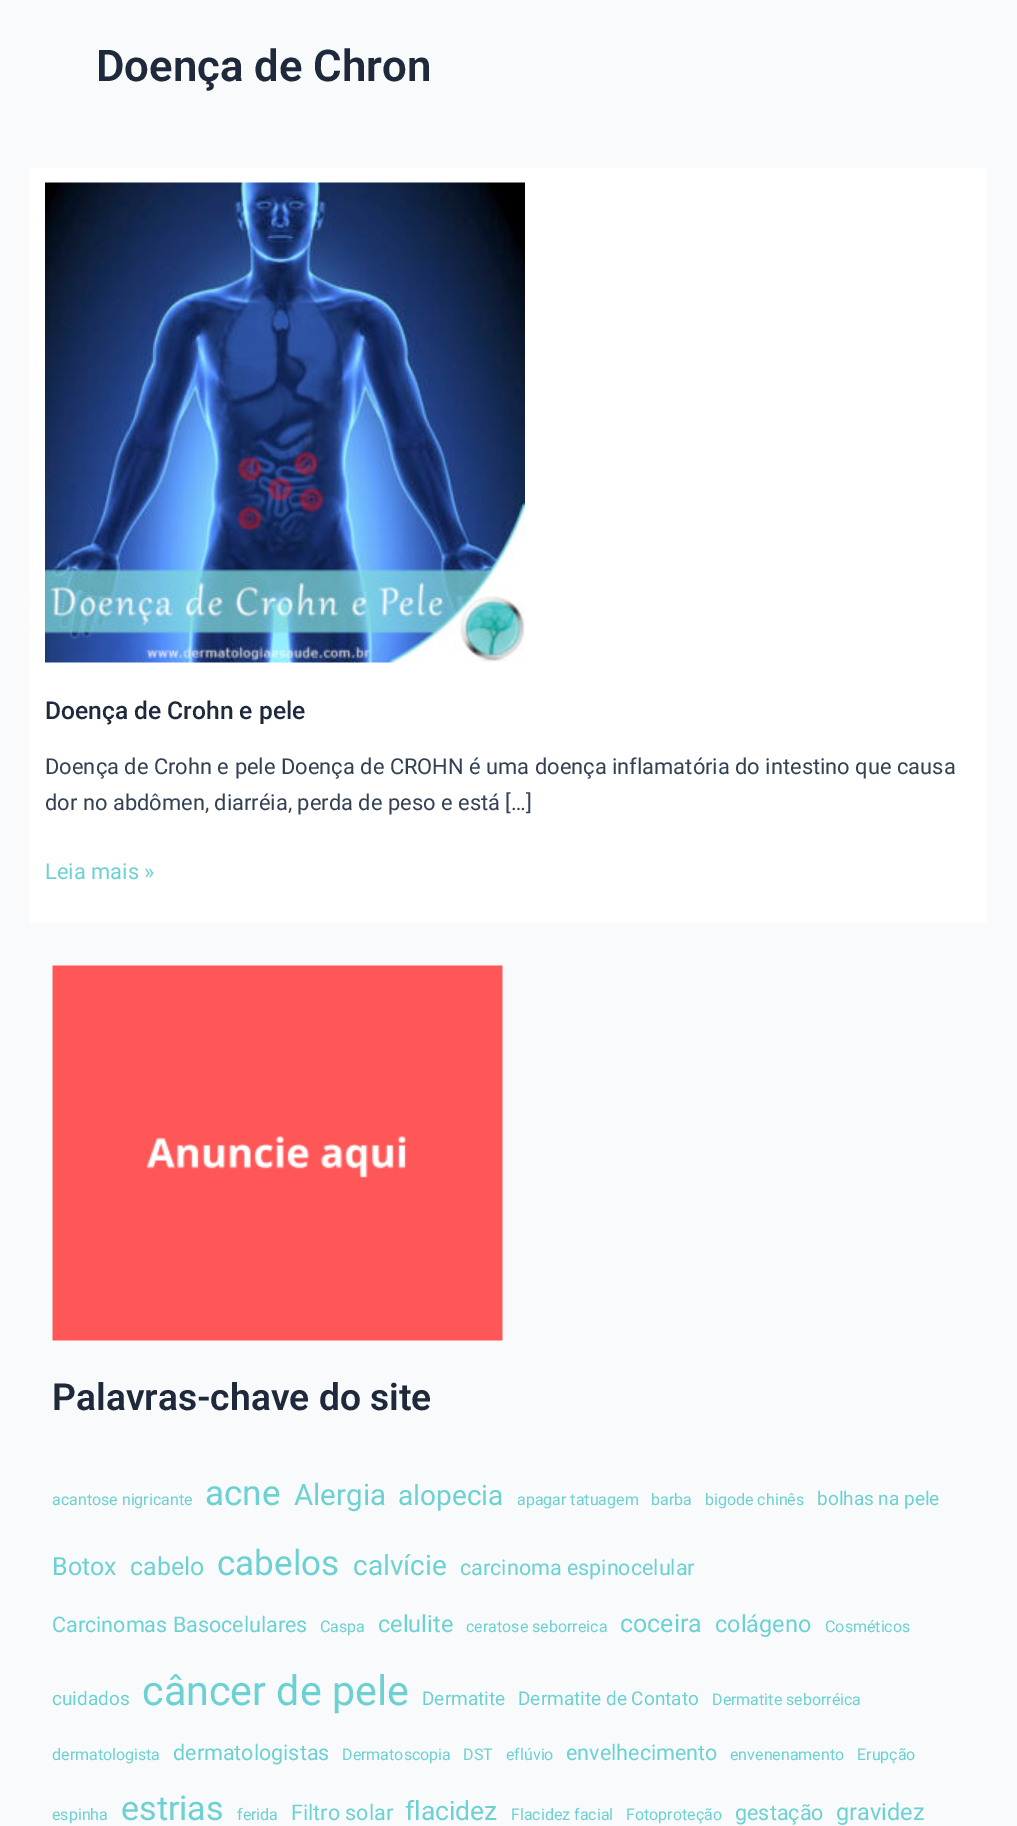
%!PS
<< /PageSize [1017 1826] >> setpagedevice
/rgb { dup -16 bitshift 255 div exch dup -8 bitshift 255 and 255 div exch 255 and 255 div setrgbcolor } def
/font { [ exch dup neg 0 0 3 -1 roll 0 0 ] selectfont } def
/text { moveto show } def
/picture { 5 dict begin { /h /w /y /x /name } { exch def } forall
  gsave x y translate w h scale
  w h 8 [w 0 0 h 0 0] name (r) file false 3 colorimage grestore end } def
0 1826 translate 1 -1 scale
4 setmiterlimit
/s1 { /Roboto-SemiBold 43.75 font 16#1E293B rgb } def
/s2 { /Roboto-Medium 24.6 font 16#1E293B rgb } def
/s3 { /Roboto-Regular 21.9 font 16#334155 rgb } def
/s4 { /Roboto-Regular 21.9 font 16#6CD1D2 rgb } def
/s5 { /Roboto-SemiBold 37.25 font 16#1E293B rgb } def
/s6 { /Roboto-Regular 16 font 16#6CD1D2 rgb } def
/s7 { /Roboto-Regular 35 font 16#6CD1D2 rgb } def
/s8 { /Roboto-Regular 29.5 font 16#6CD1D2 rgb } def
/s9 { /Roboto-Regular 28 font 16#6CD1D2 rgb } def
/s10 { /Roboto-Regular 19 font 16#6CD1D2 rgb } def
/s11 { /Roboto-Regular 25 font 16#6CD1D2 rgb } def
/s12 { /Roboto-Regular 21.5 font 16#6CD1D2 rgb } def
/s13 { /Roboto-Regular 23.5 font 16#6CD1D2 rgb } def
/s14 { /Roboto-Regular 41.25 font 16#6CD1D2 rgb } def
/s15 { /Roboto-Regular 34 font 16#6CD1D2 rgb } def
/s16 { /Roboto-Regular 26.5 font 16#6CD1D2 rgb } def
16#F9FAFB rgb
0 0 1017 1826 rectfill
s1
(Doença de Chron) 96 81 text
16#FFFFFF rgb
30 168 957 755 rectfill
(pic1.raw) 45 182 480 481 picture
s2
(Doença de Crohn e pele) 45 719 text
s3
(Doença de Crohn e pele Doença de CROHN é uma doença inflamatória do intestino que causa) 45 774 text
(dor no abdômen, diarréia, perda de peso e está […]) 45 810 text
s4
(Leia mais ») 45 879 text
(pic2.raw) 52 965 451 376 picture
s5
(Palavras-chave do site) 52 1410 text
s6
(acantose nigricante) 52 1505 text
s7
(acne) 205 1505 text
s8
(Alergia) 294 1505 text
s9
(alopecia) 398 1505 text
s6
(apagar tatuagem) 517 1505 text
(barba) 651 1505 text
(bigode chinês) 705 1505 text
s10
(bolhas na pele) 817 1505 text
s11
(Botox) 52 1575 text
(cabelo) 130 1575 text
s7
(cabelos) 217 1575 text
s9
(calvície) 353 1575 text
s12
(carcinoma espinocelular) 460 1575 text
(Carcinomas Basocelulares) 52 1632 text
s6
(Caspa) 320 1632 text
s13
(celulite) 378 1632 text
s6
(ceratose seborreica) 466 1632 text
s11
(coceira) 620 1632 text
s13
(colágeno) 715 1632 text
s6
(Cosméticos) 825 1632 text
s10
(cuidados) 52 1705 text
s14
(câncer de pele) 142 1705 text
s10
(Dermatite) 422 1705 text
(Dermatite de Contato) 518 1705 text
s6
(Dermatite seborréica) 712 1705 text
(dermatologista) 52 1760 text
s12
(dermatologistas) 173 1760 text
s6
(Dermatoscopia) 342 1760 text
(DST) 463 1760 text
(eflúvio) 506 1760 text
s12
(envelhecimento) 566 1760 text
s6
(envenenamento) 730 1760 text
(Erupção) 857 1760 text
(espinha) 52 1820 text
s15
(estrias) 121 1820 text
s6
(ferida) 237 1820 text
s12
(Filtro solar) 291 1820 text
s16
(flacidez) 405 1820 text
s6
(Flacidez facial) 511 1820 text
(Fotoproteção) 626 1820 text
s12
(gestação) 735 1820 text
s13
(gravidez) 836 1820 text
showpage
